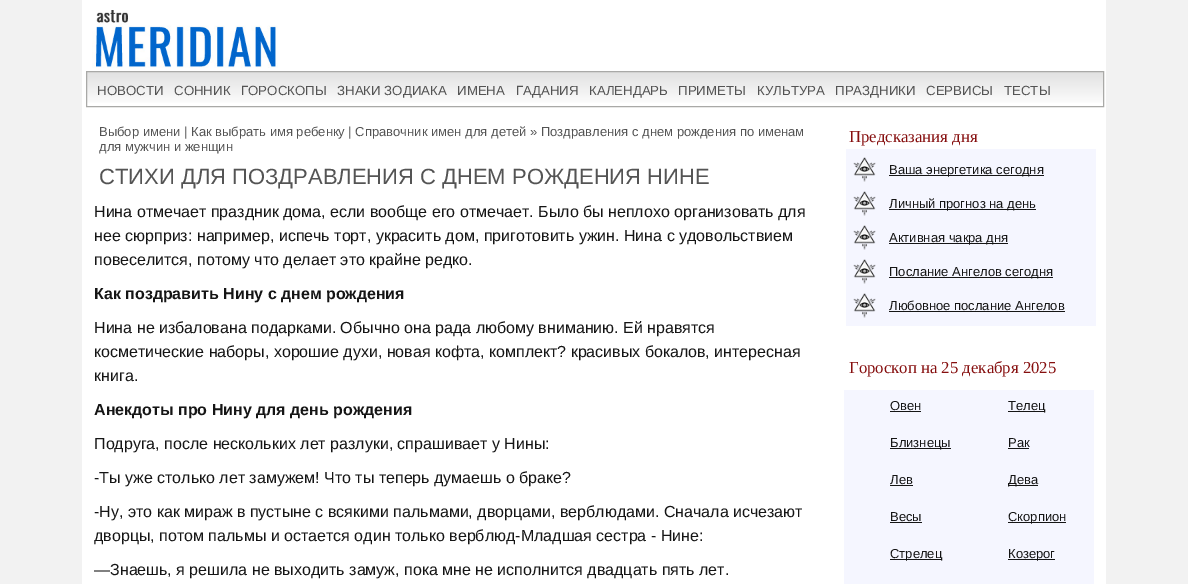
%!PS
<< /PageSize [1188 584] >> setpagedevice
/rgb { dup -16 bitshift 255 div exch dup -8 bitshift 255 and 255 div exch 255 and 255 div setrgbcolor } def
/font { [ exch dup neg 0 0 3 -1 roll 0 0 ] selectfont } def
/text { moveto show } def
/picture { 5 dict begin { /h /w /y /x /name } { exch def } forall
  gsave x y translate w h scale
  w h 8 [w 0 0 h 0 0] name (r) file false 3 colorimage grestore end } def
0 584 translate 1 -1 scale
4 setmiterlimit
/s1 { /LiberationSans-Regular 13.25 font 16#545454 rgb } def
/s2 { /LiberationSans-Regular 13 font 16#545454 rgb } def
/s3 { /LiberationSans-Regular 22 font 16#545454 rgb } def
/s4 { /LiberationSans-Regular 16 font 16#151515 rgb } def
/s5 { /LiberationSans-Bold 16 font 16#151515 rgb } def
/s6 { /LiberationSerif-Regular 16.75 font 16#860F0F rgb } def
/s7 { /LiberationSans-Regular 13 font 16#151515 rgb } def
16#F2F2F2 rgb
0 0 1188 584 rectfill
16#FFFFFF rgb
82 0 1024 584 rectfill
(pic1.raw) 92 10 186 58 picture
gsave 87 72 moveto 1103 72 lineto 1103 103 lineto 87 103 lineto closepath clip newpath
<< /ShadingType 2 /ColorSpace /DeviceRGB /Coords [595 72 595 106] /Extend [true true] /Function << /FunctionType 2 /Domain [0 1] /C0 [0.882 0.882 0.882] /C1 [1 1 1] /N 1 >> >> shfill grestore
16#A9A9A7 rgb
86.5 71.5 1017 35 rectstroke
s1
(НОВОСТИ) 97 95 text
(СОННИК) 174 95 text
(ГОРОСКОПЫ) 241 95 text
(ЗНАКИ ЗОДИАКА) 337 95 text
(ИМЕНА) 457 95 text
(ГАДАНИЯ) 516 95 text
(КАЛЕНДАРЬ) 589 95 text
(ПРИМЕТЫ) 678 95 text
(КУЛЬТУРА) 757 95 text
(ПРАЗДНИКИ) 835 95 text
(СЕРВИСЫ) 926 95 text
(ТЕСТЫ) 1004 95 text
s2
(Выбор имени | Как выбрать имя ребенку | Справочник имен для детей » Поздравления с днем рождения по именам) 99 136 text
(для мужчин и женщин) 99 151 text
s3
(СТИХИ ДЛЯ ПОЗДРАВЛЕНИЯ С ДНЕМ РОЖДЕНИЯ НИНЕ) 99 184 text
s4
(Нина отмечает праздник дома, если вообще его отмечает. Было бы неплохо организовать для) 94 217 text
(нее сюрприз: например, испечь торт, украсить дом, приготовить ужин. Нина с удовольствием) 94 241 text
(повеселится, потому что делает это крайне редко.) 94 265 text
s5
(Как поздравить Нину с днем рождения) 94 299 text
s4
(Нина не избалована подарками. Обычно она рада любому вниманию. Ей нравятся) 94 333 text
(косметические наборы, хорошие духи, новая кофта, комплект? красивых бокалов, интересная) 94 357 text
(книга.) 94 381 text
s5
(Анекдоты про Нину для день рождения) 94 415 text
s4
(Подруга, после нескольких лет разлуки, спрашивает у Нины:) 94 449 text
(-Ты уже столько лет замужем! Что ты теперь думаешь о браке?) 94 483 text
(-Ну, это как мираж в пустыне с всякими пальмами, дворцами, верблюдами. Сначала исчезают) 94 517 text
(дворцы, потом пальмы и остается один только верблюд-Младшая сестра - Нине:) 94 541 text
(—Знаешь, я решила не выходить замуж, пока мне не исполнится двадцать пять лет.) 94 575 text
s6
(Предсказания дня) 849 142 text
16#F5F6FF rgb
846 149 250 177 rectfill
(pic2.raw) 853 157 23 25 picture
16#151515 rgb
889 175 155 1 rectfill
s7
(Ваша энергетика сегодня) 889 174 text
(pic2.raw) 853 191 23 25 picture
889 209 147 1 rectfill
(Личный прогноз на день) 889 208 text
(pic2.raw) 853 225 23 25 picture
889 243 119 1 rectfill
(Активная чакра дня) 889 242 text
(pic2.raw) 853 259 23 25 picture
889 277 164 1 rectfill
(Послание Ангелов сегодня) 889 276 text
(pic2.raw) 853 293 23 25 picture
(Любовное послание Ангелов) 889 310 text
889 311 176 1 rectfill
s6
(Гороскоп на 25 декабря 2025) 849 373 text
16#F5F6FF rgb
844 390 250 194 rectfill
s7
(Овен) 890 410 text
890 411 31 1 rectfill
1008 411 37 1 rectfill
(Телец) 1008 410 text
890 448 61 1 rectfill
(Близнецы) 890 447 text
(Рак) 1008 447 text
1008 448 21 1 rectfill
(Лев) 890 484 text
890 485 23 1 rectfill
1008 485 30 1 rectfill
(Дева) 1008 484 text
(Весы) 890 521 text
890 522 32 1 rectfill
1008 522 58 1 rectfill
(Скорпион) 1008 521 text
890 559 52 1 rectfill
(Стрелец) 890 558 text
1008 559 47 1 rectfill
(Козерог) 1008 558 text
showpage
